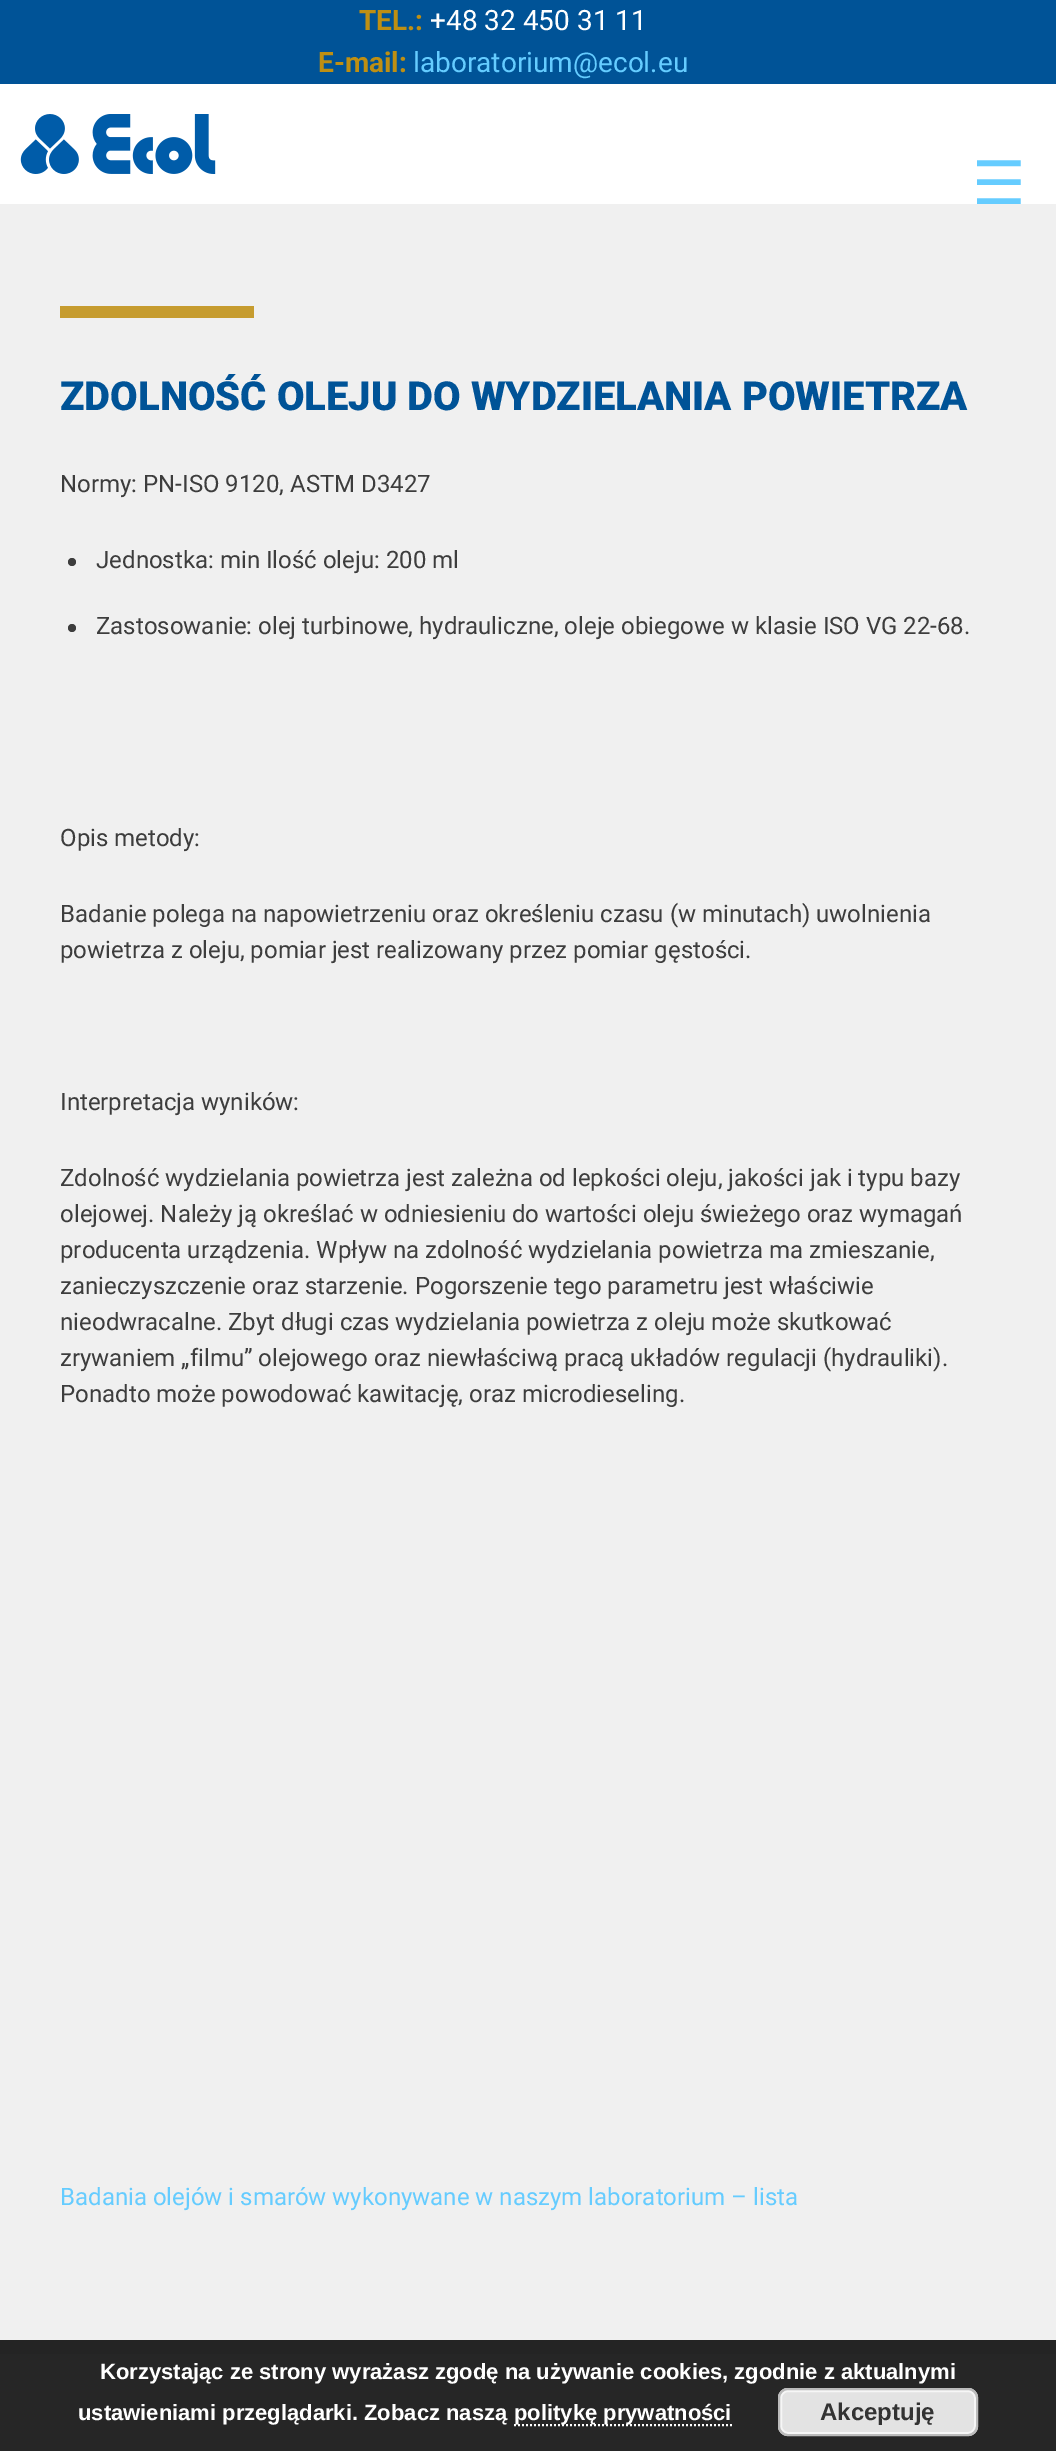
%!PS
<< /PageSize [1056 2451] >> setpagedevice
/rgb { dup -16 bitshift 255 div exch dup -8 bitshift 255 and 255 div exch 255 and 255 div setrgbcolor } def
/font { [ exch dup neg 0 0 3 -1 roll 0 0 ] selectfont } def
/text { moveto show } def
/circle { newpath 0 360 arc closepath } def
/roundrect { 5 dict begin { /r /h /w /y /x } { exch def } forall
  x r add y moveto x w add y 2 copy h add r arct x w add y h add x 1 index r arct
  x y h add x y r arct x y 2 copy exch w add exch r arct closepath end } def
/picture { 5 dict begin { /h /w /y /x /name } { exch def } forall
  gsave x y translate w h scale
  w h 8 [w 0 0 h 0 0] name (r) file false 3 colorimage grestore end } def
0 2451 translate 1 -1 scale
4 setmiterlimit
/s1 { /Roboto-Bold 28 font 16#BE8F13 rgb } def
/s2 { /Roboto-Regular 28 font 16#FFFFFF rgb } def
/s3 { /Roboto-Regular 28 font 16#65CCFF rgb } def
/s4 { /DejaVuSans-Regular 60 font 16#65CCFF rgb } def
/s5 { /Roboto-Black 40 font 16#005397 rgb } def
/s6 { /Roboto-Regular 24 font 16#3D3D3D rgb } def
/s7 { /Roboto-Regular 24 font 16#65CCFF rgb } def
/s8 { /LiberationSans-Bold 22 font 16#FFFFFF rgb } def
/s9 { /LiberationSans-Bold 24 font 16#333333 rgb } def
16#FFFFFF rgb
0 0 1056 2451 rectfill
16#262626 rgb
0 2354 1056 97 rectfill
16#005397 rgb
0 0 1056 84 rectfill
s1
(TEL.:) 359 30 text
s2
(+48 32 450 31 11) 430 30 text
s1
(E-mail:) 318 72 text
s3
(laboratorium@ecol.eu) 413 72 text
16#F0F0F0 rgb
0 204 1056 2136 rectfill
(pic1.raw) 20 114 196 60 picture
s4
(☰) 972 204 text
16#242424 rgb
0 2340 1056 14 rectfill
16#C69C2F rgb
60 306 194 12 rectfill
s5
(ZDOLNOŚĆ OLEJU DO WYDZIELANIA POWIETRZA) 60 410 text
s6
(Normy: PN-ISO 9120, ASTM D3427) 60 492 text
72 562 4 circle fill
(Jednostka: min Ilość oleju: 200 ml) 96 568 text
72 628 4 circle fill
(Zastosowanie: olej turbinowe, hydrauliczne, oleje obiegowe w klasie ISO VG 22-68.) 96 634 text
(Opis metody:) 60 846 text
(Badanie polega na napowietrzeniu oraz określeniu czasu \(w minutach\) uwolnienia) 60 922 text
(powietrza z oleju, pomiar jest realizowany przez pomiar gęstości.) 60 958 text
(Interpretacja wyników:) 60 1110 text
(Zdolność wydzielania powietrza jest zależna od lepkości oleju, jakości jak i typu bazy) 60 1186 text
(olejowej. Należy ją określać w odniesieniu do wartości oleju świeżego oraz wymagań) 60 1222 text
(producenta urządzenia. Wpływ na zdolność wydzielania powietrza ma zmieszanie,) 60 1258 text
(zanieczyszczenie oraz starzenie. Pogorszenie tego parametru jest właściwie) 60 1294 text
(nieodwracalne. Zbyt długi czas wydzielania powietrza z oleju może skutkować) 60 1330 text
(zrywaniem „filmu” olejowego oraz niewłaściwą pracą układów regulacji \(hydrauliki\).) 60 1366 text
(Ponadto może powodować kawitację, oraz microdieseling.) 60 1402 text
s7
(Badania olejów i smarów wykonywane w naszym laboratorium – lista) 60 2205 text
s8
(Korzystając ze strony wyrażasz zgodę na używanie cookies, zgodnie z aktualnymi) 100 2379 text
(ustawieniami przeglądarki. Zobacz naszą) 78 2420 text
2 setlinewidth
[2 2] 0 setdash
514 2425 moveto 732 2425 lineto stroke
(politykę prywatności) 514 2420 text
16#E3E3E3 rgb
778 2388 200 48 10 roundrect fill
16#F6F6F6 rgb
[] 0 setdash
781 2391 194 42 7 roundrect stroke
16#BBBBBB rgb
779 2389 198 46 9 roundrect stroke
s9
(Akceptuję) 820 2420 text
showpage
